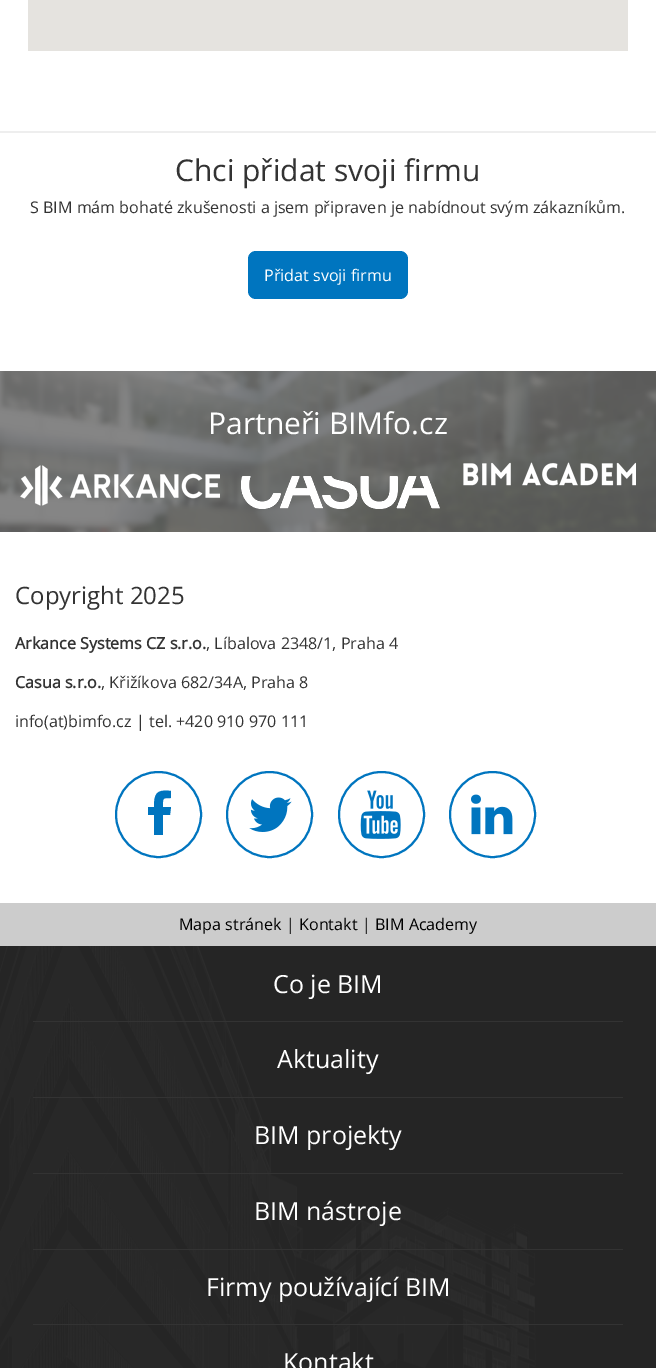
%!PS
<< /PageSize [656 1368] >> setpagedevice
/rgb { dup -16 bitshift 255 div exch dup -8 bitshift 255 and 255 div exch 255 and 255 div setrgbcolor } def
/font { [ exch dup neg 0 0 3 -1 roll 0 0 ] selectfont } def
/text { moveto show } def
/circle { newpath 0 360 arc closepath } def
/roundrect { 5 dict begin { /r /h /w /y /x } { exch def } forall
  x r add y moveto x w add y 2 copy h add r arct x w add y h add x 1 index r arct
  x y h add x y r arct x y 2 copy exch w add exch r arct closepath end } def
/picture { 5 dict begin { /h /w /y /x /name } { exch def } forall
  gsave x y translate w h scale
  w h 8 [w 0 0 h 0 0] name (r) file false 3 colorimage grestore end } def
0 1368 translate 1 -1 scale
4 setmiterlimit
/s1 { /OpenSans-Regular 30 font 16#333333 rgb } def
/s2 { /OpenSans-Regular 16.1 font 16#333333 rgb } def
/s3 { /OpenSans-Regular 16.1 font 16#FFFFFF rgb } def
/s4 { /OpenSans-Regular 30 font 16#FFFFFF rgb } def
/s5 { /OpenSans-Regular 24 font 16#333333 rgb } def
/s6 { /OpenSans-Bold 16.1 font 16#333333 rgb } def
/s7 { /OpenSans-Regular 16.1 font 16#000000 rgb } def
/s8 { /OpenSans-Regular 25 font 16#FFFFFF rgb } def
16#FFFFFF rgb
0 0 656 1368 rectfill
16#E5E3DF rgb
28 0 600 51 rectfill
16#EEEEEE rgb
0 131 656 2 rectfill
s1
(Chci přidat svoji firmu) 175 181 text
s2
(S BIM mám bohaté zkušenosti a jsem připraven je nabídnout svým zákazníkům.) 30 213 text
16#0075BF rgb
248 251 160 48 8 roundrect fill
s3
(Přidat svoji firmu) 264 281 text
(pic1.raw) 0 371 656 161 picture
s4
(Partneři BIMfo.cz) 208 434 text
(pic2.raw) 20 465 200 41 picture
(pic3.raw) 241 476 199 33 picture
(pic4.raw) 463 462 173 24 picture
s5
(Copyright 2025) 15 604 text
s6
(Arkance Systems CZ s.r.o.) 15 649 text
s2
(, Líbalova 2348/1, Praha 4) 206 649 text
s6
(Casua s.r.o.) 15 688 text
s2
(, Křižíkova 682/34A, Praha 8) 101 688 text
(info\(at\)bimfo.cz | tel. +420 910 970 111) 15 727 text
16#0075BF rgb
2 setlinewidth
158.5 814.5 42.5 circle stroke
171 791 moveto 171 798 lineto 162 798 163 798 163 807 curveto 171 807 lineto 170 815 lineto 163 815 lineto 163 835 lineto 154 835 lineto 154 815 lineto 148 815 lineto 148 807 lineto 154 807 lineto 154 794 156 789 171 791 curveto closepath fill
269.5 814.5 42.5 circle stroke
(pic5.raw) 249 797 43 35 picture
381.5 814.5 42.5 circle stroke
(pic6.raw) 360 790 41 49 picture
492.5 814.5 42.5 circle stroke
(pic7.raw) 471 794 42 41 picture
16#CCCCCC rgb
0 903 656 43 rectfill
s7
(Mapa stránek) 179 930 text
s2
(|) 286 930 text
s7
(Kontakt) 299 930 text
s2
(|) 362 930 text
s7
(BIM Academy) 375 930 text
(pic8.raw) 0 946 656 422 picture
s8
(Co je BIM) 273 993 text
16#333333 rgb
33 1021 590 1 rectfill
s8
(Aktuality) 277 1068 text
16#333333 rgb
33 1097 590 1 rectfill
s8
(BIM projekty) 254 1144 text
16#333333 rgb
33 1173 590 1 rectfill
s8
(BIM nástroje) 254 1220 text
16#333333 rgb
33 1249 590 1 rectfill
s8
(Firmy používající BIM) 206 1296 text
16#333333 rgb
33 1324 590 1 rectfill
s8
(Kontakt) 283 1371 text
showpage
